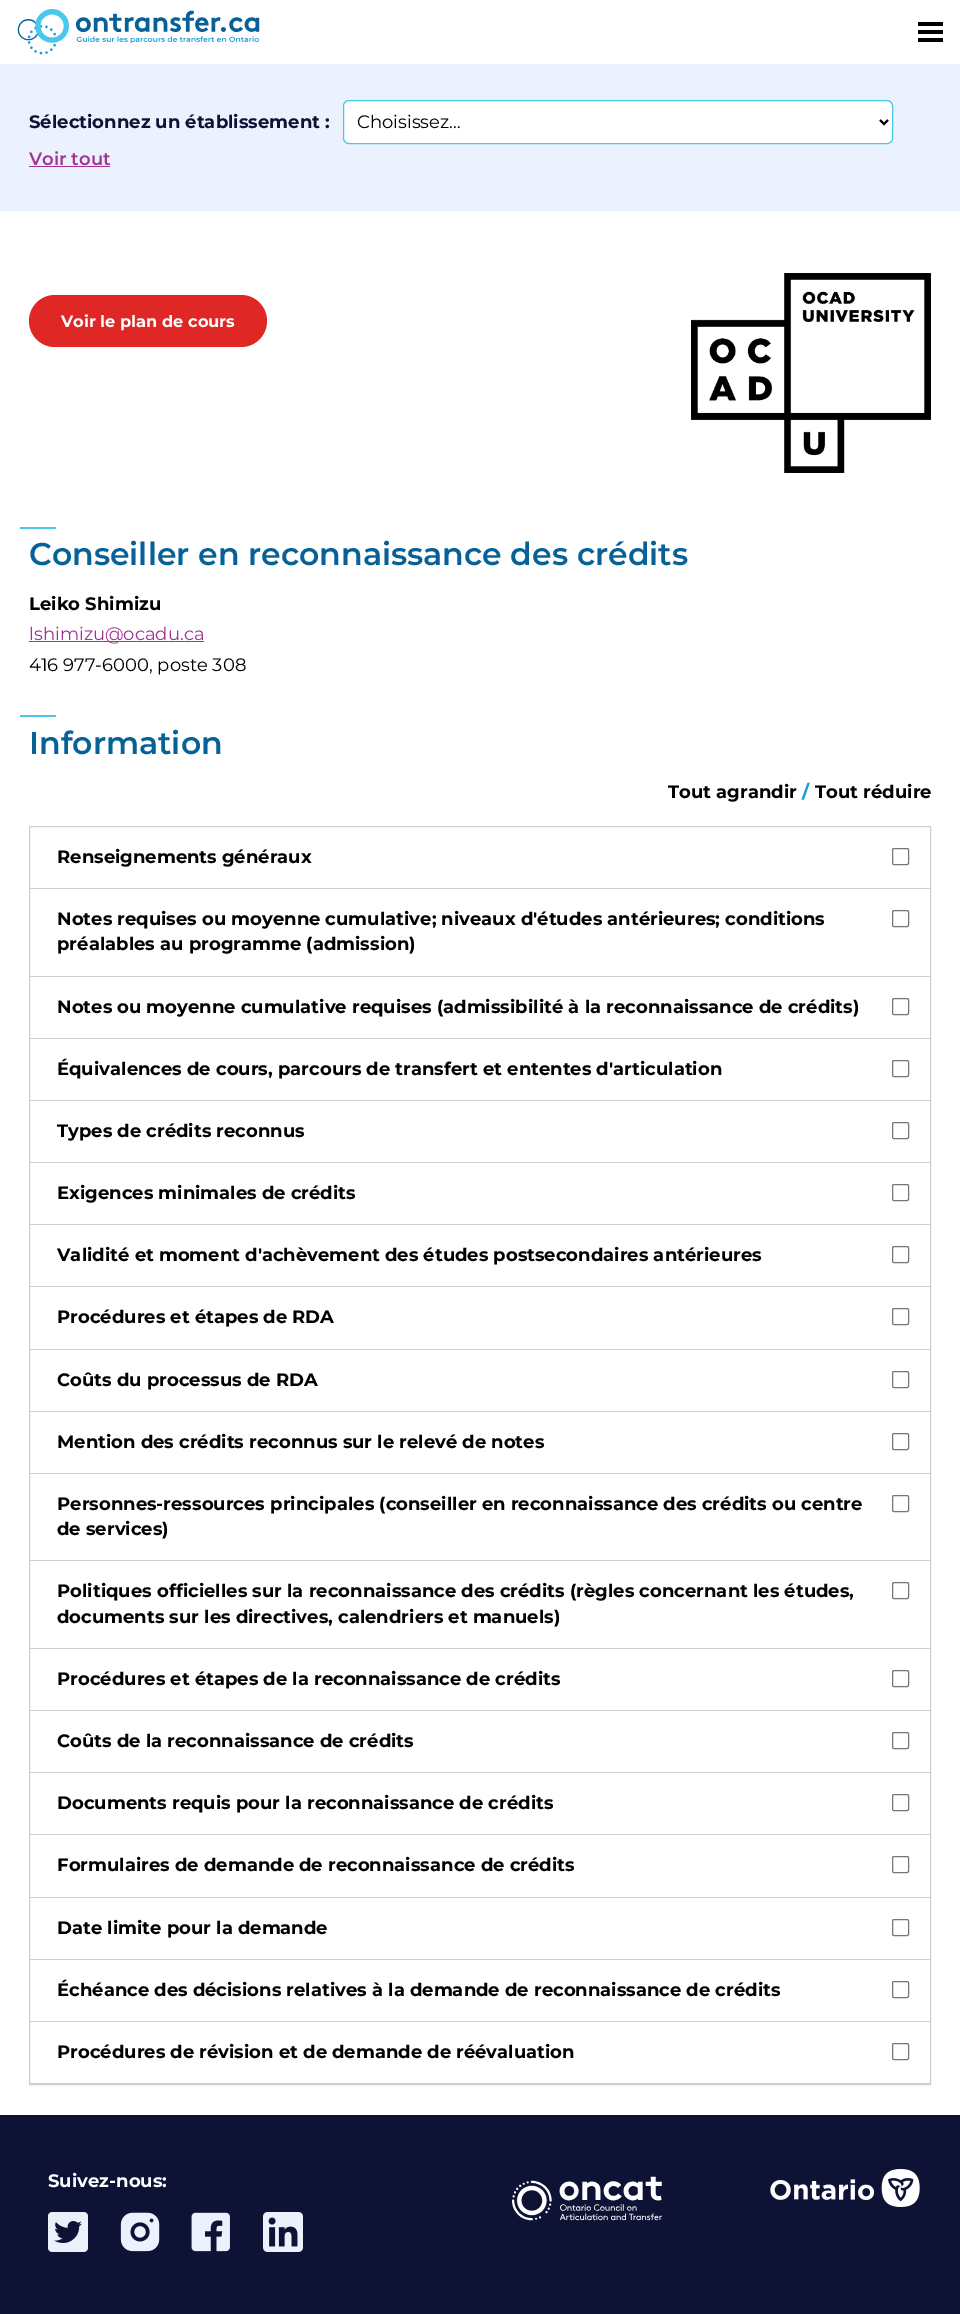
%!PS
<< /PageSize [960 2314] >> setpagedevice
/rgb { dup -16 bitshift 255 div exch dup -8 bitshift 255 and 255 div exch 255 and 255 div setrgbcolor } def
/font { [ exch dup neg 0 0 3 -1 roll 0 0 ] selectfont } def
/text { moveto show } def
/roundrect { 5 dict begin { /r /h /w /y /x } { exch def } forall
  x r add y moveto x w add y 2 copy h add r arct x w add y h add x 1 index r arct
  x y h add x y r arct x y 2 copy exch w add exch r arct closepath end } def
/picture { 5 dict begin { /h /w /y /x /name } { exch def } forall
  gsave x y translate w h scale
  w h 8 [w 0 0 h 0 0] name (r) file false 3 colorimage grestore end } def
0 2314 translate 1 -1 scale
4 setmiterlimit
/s1 { /Montserrat-Bold 18 font 16#0E1336 rgb } def
/s2 { /Montserrat-Regular 18 font 16#000000 rgb } def
/s3 { /Montserrat-Thin 18 font 16#A23293 rgb } def
/s4 { /Montserrat-Bold 16.25 font 16#FFFFFF rgb } def
/s5 { /Montserrat-Thin 31.5 font 16#066197 rgb } def
/s6 { /Montserrat-Bold 18 font 16#000000 rgb } def
/s7 { /Montserrat-Regular 18 font 16#A23293 rgb } def
/s8 { /Montserrat-Bold 18 font 16#1B99D6 rgb } def
/s9 { /Montserrat-Bold 18 font 16#FFFFFF rgb } def
16#FFFFFF rgb
0 0 960 2314 rectfill
(pic1.raw) 17 9 243 46 picture
16#000000 rgb
918 22 25 4 rectfill
918 30 25 4 rectfill
918 38 25 4 rectfill
16#ECF2FD rgb
0 64 960 147 rectfill
s1
(Sélectionnez un établissement :) 29 128 text
16#FFFFFF rgb
343.5 100.5 549 43 5.5 roundrect gsave fill grestore
16#48C7EC rgb
stroke
16#000000 rgb
2 setlinewidth
880 120 moveto 884 124 lineto 888 120 lineto stroke
s2
(Choisissez…) 357 128 text
s3
(Voir tout) 29 165 text
29 166 81 1 rectfill
16#DF2825 rgb
29 295 238 52 26 roundrect fill
s4
(Voir le plan de cours) 61 327 text
(pic2.raw) 691 273 240 200 picture
16#48C7EC rgb
20 527 36 2 rectfill
s5
(Conseiller en reconnaissance des crédits) 29 565 text
s6
(Leiko Shimizu) 29 610 text
16#A23293 rgb
29 641 175 1 rectfill
s7
(lshimizu@ocadu.ca) 29 640 text
s2
(416 977-6000, poste 308) 29 671 text
16#48C7EC rgb
20 715 36 2 rectfill
s5
(Information) 29 754 text
s6
(Tout agrandir) 668 798 text
s8
(/) 802 798 text
s6
(Tout réduire) 815 798 text
16#CFCFCF rgb
1 setlinewidth
29.5 826.5 901 1258 rectstroke
30 888 900 1 rectfill
s6
(Renseignements généraux) 57 863 text
16#767676 rgb
892.5 848.5 16 16 1.5 roundrect stroke
16#CFCFCF rgb
30 976 900 1 rectfill
s6
(Notes requises ou moyenne cumulative; niveaux d'études antérieures; conditions) 57 925 text
(préalables au programme \(admission\)) 57 950 text
16#767676 rgb
892.5 910.5 16 16 1.5 roundrect stroke
16#CFCFCF rgb
30 1038 900 1 rectfill
s6
(Notes ou moyenne cumulative requises \(admissibilité à la reconnaissance de crédits\)) 57 1013 text
16#767676 rgb
892.5 998.5 16 16 1.5 roundrect stroke
16#CFCFCF rgb
30 1100 900 1 rectfill
s6
(Équivalences de cours, parcours de transfert et ententes d'articulation) 57 1075 text
16#767676 rgb
892.5 1060.5 16 16 1.5 roundrect stroke
16#CFCFCF rgb
30 1162 900 1 rectfill
s6
(Types de crédits reconnus) 57 1137 text
16#767676 rgb
892.5 1122.5 16 16 1.5 roundrect stroke
16#CFCFCF rgb
30 1224 900 1 rectfill
s6
(Exigences minimales de crédits) 57 1199 text
16#767676 rgb
892.5 1184.5 16 16 1.5 roundrect stroke
16#CFCFCF rgb
30 1286 900 1 rectfill
s6
(Validité et moment d'achèvement des études postsecondaires antérieures) 57 1261 text
16#767676 rgb
892.5 1246.5 16 16 1.5 roundrect stroke
16#CFCFCF rgb
30 1349 900 1 rectfill
s6
(Procédures et étapes de RDA) 57 1323 text
16#767676 rgb
892.5 1308.5 16 16 1.5 roundrect stroke
16#CFCFCF rgb
30 1411 900 1 rectfill
s6
(Coûts du processus de RDA) 57 1386 text
16#767676 rgb
892.5 1371.5 16 16 1.5 roundrect stroke
16#CFCFCF rgb
30 1473 900 1 rectfill
s6
(Mention des crédits reconnus sur le relevé de notes) 57 1448 text
16#767676 rgb
892.5 1433.5 16 16 1.5 roundrect stroke
16#CFCFCF rgb
30 1560 900 1 rectfill
s6
(Personnes-ressources principales \(conseiller en reconnaissance des crédits ou centre) 57 1510 text
(de services\)) 57 1535 text
16#767676 rgb
892.5 1495.5 16 16 1.5 roundrect stroke
16#CFCFCF rgb
30 1648 900 1 rectfill
s6
(Politiques officielles sur la reconnaissance des crédits \(règles concernant les études,) 57 1597 text
(documents sur les directives, calendriers et manuels\)) 57 1623 text
16#767676 rgb
892.5 1582.5 16 16 1.5 roundrect stroke
16#CFCFCF rgb
30 1710 900 1 rectfill
s6
(Procédures et étapes de la reconnaissance de crédits) 57 1685 text
16#767676 rgb
892.5 1670.5 16 16 1.5 roundrect stroke
16#CFCFCF rgb
30 1772 900 1 rectfill
s6
(Coûts de la reconnaissance de crédits) 57 1747 text
16#767676 rgb
892.5 1732.5 16 16 1.5 roundrect stroke
16#CFCFCF rgb
30 1834 900 1 rectfill
s6
(Documents requis pour la reconnaissance de crédits) 57 1809 text
16#767676 rgb
892.5 1794.5 16 16 1.5 roundrect stroke
16#CFCFCF rgb
30 1897 900 1 rectfill
s6
(Formulaires de demande de reconnaissance de crédits) 57 1871 text
16#767676 rgb
892.5 1856.5 16 16 1.5 roundrect stroke
16#CFCFCF rgb
30 1959 900 1 rectfill
s6
(Date limite pour la demande) 57 1934 text
16#767676 rgb
892.5 1919.5 16 16 1.5 roundrect stroke
16#CFCFCF rgb
30 2021 900 1 rectfill
s6
(Échéance des décisions relatives à la demande de reconnaissance de crédits) 57 1996 text
16#767676 rgb
892.5 1981.5 16 16 1.5 roundrect stroke
16#CFCFCF rgb
30 2083 900 1 rectfill
s6
(Procédures de révision et de demande de réévaluation) 57 2058 text
16#767676 rgb
892.5 2043.5 16 16 1.5 roundrect stroke
16#0E1336 rgb
0 2115 960 199 rectfill
s9
(Suivez-nous:) 48 2187 text
(pic3.raw) 48 2212 40 40 picture
(pic4.raw) 120 2212 40 40 picture
(pic5.raw) 191 2212 39 40 picture
(pic6.raw) 263 2212 40 40 picture
(pic7.raw) 512 2176 150 45 picture
(pic8.raw) 770 2169 150 38 picture
showpage
